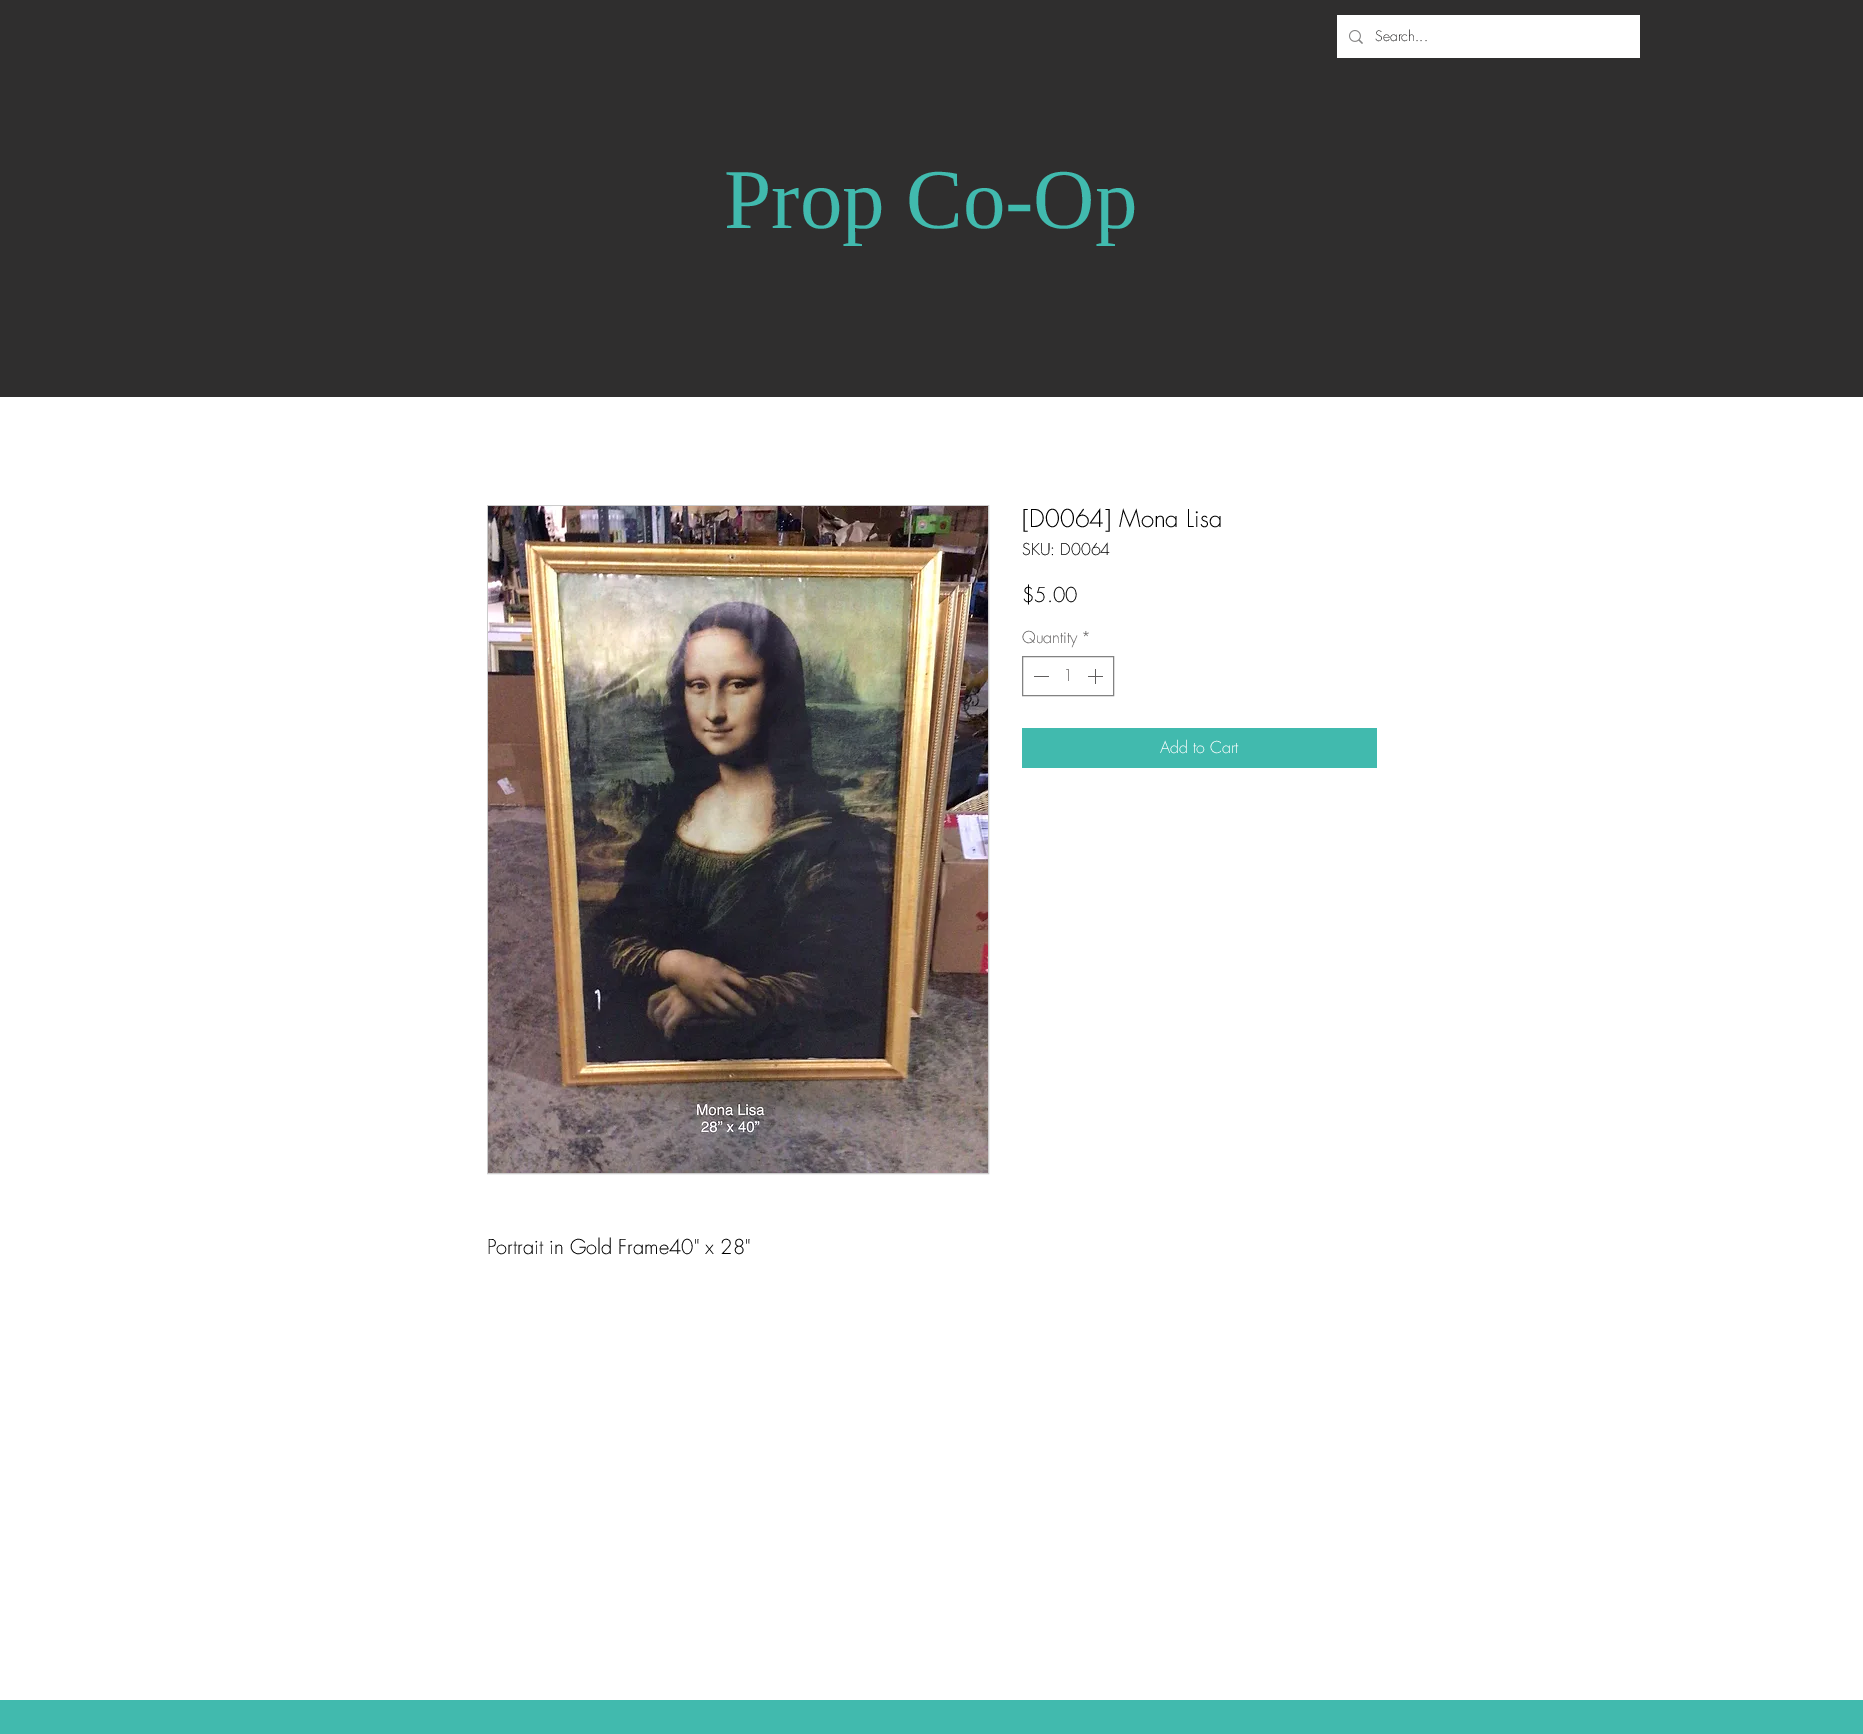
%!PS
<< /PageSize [1863 1734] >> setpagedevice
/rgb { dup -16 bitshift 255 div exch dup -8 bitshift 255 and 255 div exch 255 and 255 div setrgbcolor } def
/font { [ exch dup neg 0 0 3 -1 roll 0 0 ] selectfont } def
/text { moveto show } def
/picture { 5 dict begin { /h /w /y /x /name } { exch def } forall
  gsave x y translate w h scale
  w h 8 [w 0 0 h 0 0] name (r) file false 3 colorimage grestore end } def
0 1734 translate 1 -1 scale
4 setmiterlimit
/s1 { /futura-Light 14 font 16#2F2E2E rgb } def
/s2 { /LiberationSerif-Regular 85 font 16#41BAAE rgb } def
/s3 { /futura-Light 24 font 16#000000 rgb } def
/s4 { /futura-Light 16 font 16#000000 rgb } def
/s5 { /futura-Light 20 font 16#000000 rgb } def
/s6 { /futura-Light 16 font 16#605E5E rgb } def
/s7 { /futura-Light 16 font 16#FFFFFF rgb } def
16#FFFFFF rgb
0 0 1863 1734 rectfill
16#2F2E2E rgb
0 0 1863 397 rectfill
16#FFFFFF rgb
1337 15 303 43 rectfill
(pic1.raw) 1349 30 14 14 picture
s1
(Search...) 1375 41 text
s2
(Prop Co-Op) 724 228 text
s3
([D0064] Mona Lisa) 1022 527 text
s4
(SKU: D0064) 1022 555 text
s5
($5.00) 1022 602 text
s6
(Quantity) 1022 643 text
(*) 1081 643 text
16#828282 rgb
1022.5 656.5 91 39 rectstroke
16#605E5E rgb
1034 676 15 1 rectfill
(1) 1063 681 text
(pic2.raw) 1088 669 15 15 picture
16#41BAAE rgb
1022 728 355 40 rectfill
s7
(Add to Cart) 1160 753 text
16#CCCCCC rgb
487.5 505.5 501 668 rectstroke
(pic3.raw) 488 506 500 667 picture
s5
(Portrait in Gold Frame40" x 28") 487 1254 text
16#41BAAE rgb
0 1700 1863 34 rectfill
showpage
